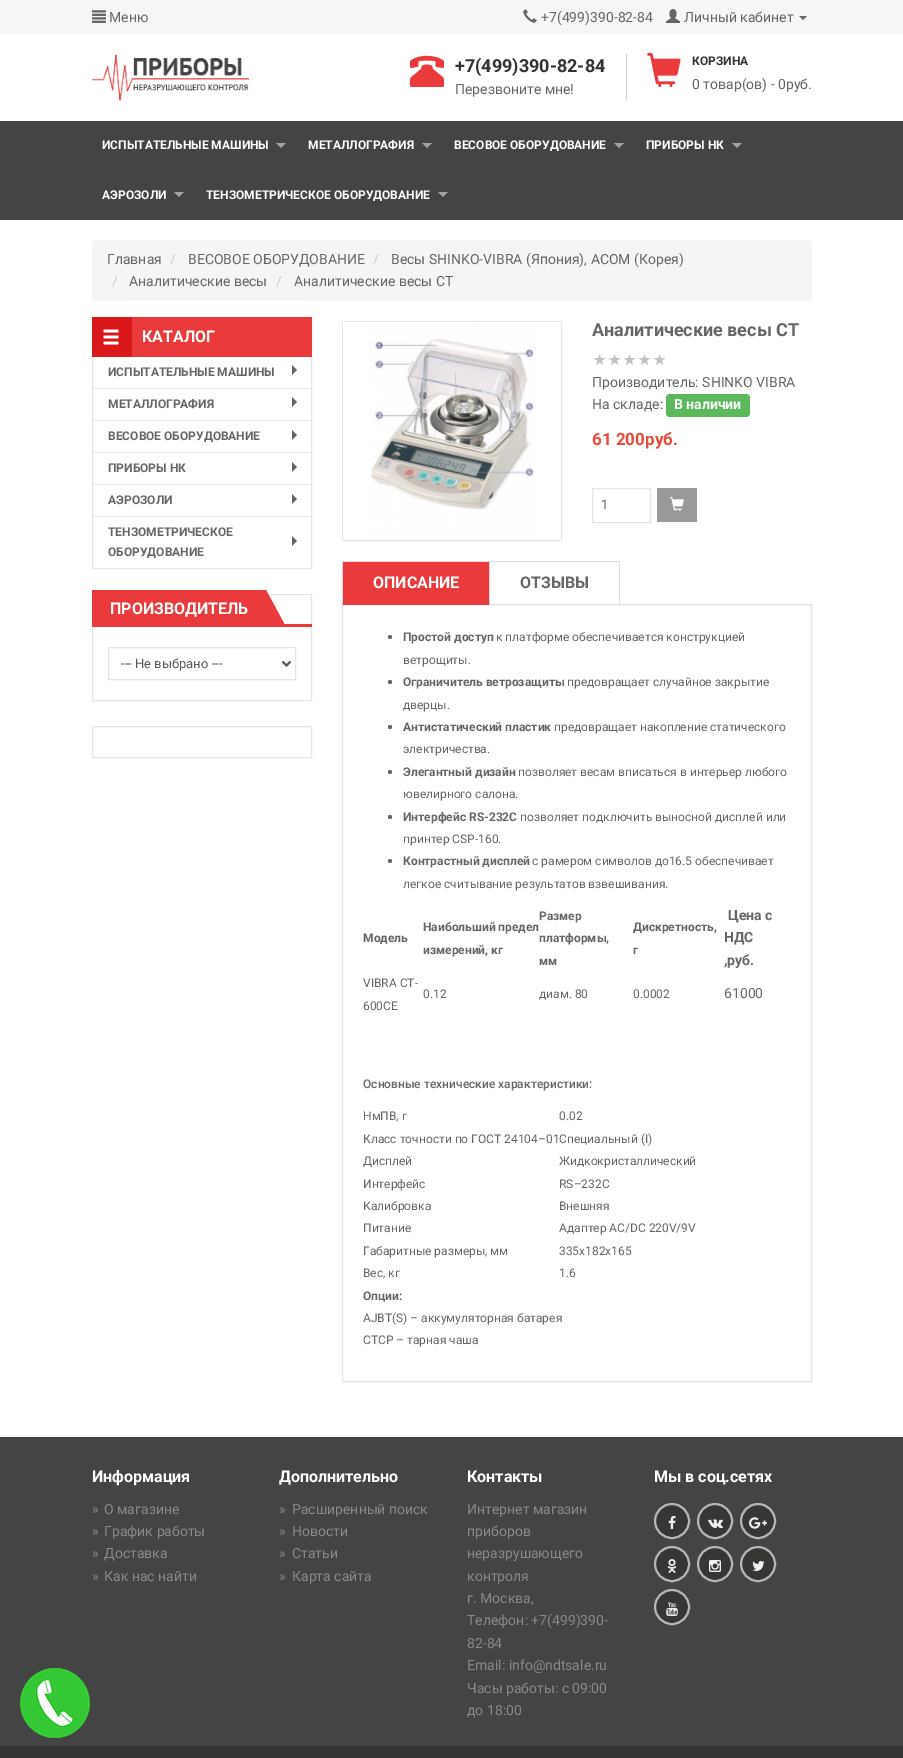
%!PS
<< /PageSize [903 1758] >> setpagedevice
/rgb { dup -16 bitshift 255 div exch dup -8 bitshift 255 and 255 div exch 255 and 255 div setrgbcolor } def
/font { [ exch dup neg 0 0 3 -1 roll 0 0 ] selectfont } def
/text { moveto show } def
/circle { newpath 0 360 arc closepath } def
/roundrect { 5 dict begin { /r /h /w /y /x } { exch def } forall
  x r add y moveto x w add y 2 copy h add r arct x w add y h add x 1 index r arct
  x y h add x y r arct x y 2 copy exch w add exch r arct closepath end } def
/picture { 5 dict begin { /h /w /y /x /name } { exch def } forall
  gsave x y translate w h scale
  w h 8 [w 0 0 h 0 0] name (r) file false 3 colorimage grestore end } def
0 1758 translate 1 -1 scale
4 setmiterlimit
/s1 { /Roboto-Regular 14 font 16#666666 rgb } def
/s2 { /Roboto-Bold 18 font 16#333333 rgb } def
/s3 { /Roboto-Bold 12 font 16#333333 rgb } def
/s4 { /Roboto-Bold 12 font 16#FFFFFF rgb } def
/s5 { /Roboto-Regular 14 font 16#CCCCCC rgb } def
/s6 { /Roboto-Bold 16 font 16#FFFFFF rgb } def
/s7 { /Roboto-Bold 12 font 16#666666 rgb } def
/s8 { /Roboto-Regular 13 font 16#595959 rgb } def
/s9 { /Roboto-Bold 18 font 16#666666 rgb } def
/s10 { /Roboto-Bold 14 font 16#FFFFFF rgb } def
/s11 { /Roboto-Bold 17 font 16#E74C3C rgb } def
/s12 { /Roboto-Bold 16 font 16#666666 rgb } def
/s13 { /Roboto-Regular 12 font 16#666666 rgb } def
/s14 { /Roboto-Bold 14 font 16#666666 rgb } def
/s15 { /Roboto-Medium 12 font 16#666666 rgb } def
/s16 { /Roboto-Regular 14 font 16#8A8989 rgb } def
16#FFFFFF rgb
0 0 903 1758 rectfill
16#F6F6F6 rgb
0 0 903 34 rectfill
(pic1.raw) 92 10 14 13 picture
s1
(Меню) 109 22 text
(pic2.raw) 523 9 14 14 picture
(+7\(499\)390-82-84) 541 22 text
(pic3.raw) 666 9 14 14 picture
(Личный кабинет) 684 22 text
799 16 moveto 807 16 lineto 803 20 lineto closepath fill
(pic4.raw) 92 54 157 47 picture
16#CCCCCC rgb
626 54 1 46 rectfill
(pic5.raw) 410 55 34 32 picture
s2
(+7\(499\)390-82-84) 455 72 text
s1
(Перезвоните мне!) 455 94 text
(pic6.raw) 647 53 34 34 picture
s3
(КОРЗИНА) 692 65 text
s1
(0 товар\(ов\) - 0руб.) 692 89 text
16#444444 rgb
0 121 903 99 rectfill
s4
(ИСПЫТАТЕЛЬНЫЕ МАШИНЫ) 102 149 text
16#A2A2A2 rgb
276 143 moveto 286 143 lineto 281 148 lineto closepath fill
s4
(МЕТАЛЛОГРАФИЯ) 308 149 text
16#A2A2A2 rgb
422 143 moveto 432 143 lineto 427 148 lineto closepath fill
s4
(ВЕСОВОЕ ОБОРУДОВАНИЕ) 454 149 text
16#A2A2A2 rgb
614 143 moveto 624 143 lineto 619 148 lineto closepath fill
s4
(ПРИБОРЫ НК) 646 149 text
16#A2A2A2 rgb
732 143 moveto 742 143 lineto 737 148 lineto closepath fill
s4
(АЭРОЗОЛИ) 102 199 text
16#A2A2A2 rgb
174 192 moveto 184 192 lineto 179 197 lineto closepath fill
s4
(ТЕНЗОМЕТРИЧЕСКОЕ ОБОРУДОВАНИЕ) 206 199 text
16#A2A2A2 rgb
438 192 moveto 448 192 lineto 443 197 lineto closepath fill
16#F5F5F5 rgb
92 240 720 61 4 roundrect fill
s1
(Главная) 107 264 text
s5
(/) 170 264 text
s1
(ВЕСОВОЕ ОБОРУДОВАНИЕ) 188 264 text
s5
(/) 373 264 text
s1
(Весы SHINKO-VIBRA \(Япония\), ACOM \(Корея\)) 391 264 text
s5
(/) 112 286 text
s1
(Аналитические весы) 129 286 text
s5
(/) 276 286 text
s1
(Аналитические весы CT) 294 286 text
16#E5E5E5 rgb
92.5 321.5 219 247 rectstroke
16#EA3A3C rgb
132 317 180 40 rectfill
16#DA1719 rgb
92 317 40 40 rectfill
(pic7.raw) 103 329 16 16 picture
s6
(КАТАЛОГ) 142 342 text
s7
(ИСПЫТАТЕЛЬНЫЕ МАШИНЫ) 108 376 text
292 375 moveto 292 365 lineto 297 370 lineto closepath fill
16#E5E5E5 rgb
93 388 218 1 rectfill
s7
(МЕТАЛЛОГРАФИЯ) 108 408 text
292 407 moveto 292 397 lineto 297 402 lineto closepath fill
16#E5E5E5 rgb
93 420 218 1 rectfill
s7
(ВЕСОВОЕ ОБОРУДОВАНИЕ) 108 440 text
292 440 moveto 292 430 lineto 297 435 lineto closepath fill
16#E5E5E5 rgb
93 452 218 1 rectfill
s7
(ПРИБОРЫ НК) 108 472 text
292 472 moveto 292 462 lineto 297 467 lineto closepath fill
16#E5E5E5 rgb
93 484 218 1 rectfill
s7
(АЭРОЗОЛИ) 108 504 text
292 504 moveto 292 494 lineto 297 499 lineto closepath fill
16#E5E5E5 rgb
93 516 218 1 rectfill
s7
(ТЕНЗОМЕТРИЧЕСКОЕ) 108 536 text
292 546 moveto 292 536 lineto 297 541 lineto closepath fill
(ОБОРУДОВАНИЕ) 108 556 text
16#E5E5E5 rgb
92.5 594.5 219 106 rectstroke
16#EA3A3C rgb
284 624 28 3 rectfill
92 590 174 37 rectfill
s6
(ПРОИЗВОДИТЕЛЬ) 110 614 text
16#EA3A3C rgb
286 627 moveto 266 627 lineto 266 590 lineto closepath fill
16#E5E5E5 rgb
108.5 647.5 187 32 rectstroke
16#595959 rgb
2 setlinewidth
282.5 661.5 moveto 286.5 665.5 lineto 290.5 661.5 lineto stroke
s8
(--- Не выбрано ---) 121 668 text
16#E5E5E5 rgb
1 setlinewidth
92.5 726.5 219 31 rectstroke
342.5 321.5 219 219 1.5 roundrect stroke
(pic8.raw) 343 322 218 218 picture
s9
(Аналитические весы CT) 592 336 text
(pic9.raw) 593 354 13 11 picture
(pic9.raw) 608 354 13 11 picture
(pic9.raw) 623 354 13 11 picture
(pic9.raw) 638 354 13 11 picture
(pic9.raw) 653 354 13 11 picture
s1
(Производитель: SHINKO VIBRA) 592 387 text
(На складе:) 592 409 text
16#5CB85C rgb
666 394 84 23 4 roundrect fill
s10
(В наличии) 674 409 text
s11
(61 200руб.) 592 445 text
16#E5E5E5 rgb
592.5 488.5 58 34 rectstroke
s8
(1) 601 509 text
16#999999 rgb
657 488 40 34 rectfill
(pic10.raw) 670 497 14 14 picture
16#E3E1E1 rgb
342.5 604.5 469 777 rectstroke
16#EA3A3C rgb
342 562 148 43 rectfill
16#DDDDDD rgb
342 561 148 1 rectfill
490 561 moveto 490 605 lineto 489 604 lineto 489 562 lineto closepath fill
342 605 moveto 342 561 lineto 343 562 lineto 343 604 lineto closepath fill
s6
(ОПИСАНИЕ) 373 588 text
16#DDDDDD rgb
489 561 131 1 rectfill
619 561 1 43 rectfill
s12
(ОТЗЫВЫ) 520 588 text
390 637 2 circle fill
s7
(Простой доступ) 403 641 text
s13
(к платформе обеспечивается конструкцией) 496 641 text
(ветрощиты.) 403 664 text
390 682 2 circle fill
s7
(Ограничитель ветрозащиты) 403 686 text
s13
(предовращает случайное закрытие) 567 686 text
(дверцы.) 403 709 text
390 727 2 circle fill
s7
(Антистатический пластик) 403 731 text
s13
(предовращает накопление статического) 554 731 text
(электричества.) 403 753 text
390 772 2 circle fill
s7
(Элегантный дизайн) 403 776 text
s13
(позволяет весам вписаться в интерьер любого) 518 776 text
(ювелирного салона.) 403 798 text
390 817 2 circle fill
s7
(Интерфейс RS-232C) 403 821 text
s13
(позволяет подключить выносной дисплей или) 520 821 text
(принтер CSP-160.) 403 843 text
390 861 2 circle fill
s7
(Контрастный дисплей) 403 865 text
s13
(с рамером символов до16.5 обеспечивает) 532 865 text
(легкое считывание результатов взвешивания.) 403 888 text
s7
(Модель) 363 942 text
(Наибольший предел) 423 931 text
(измерений, кг) 423 954 text
(Размер) 539 920 text
(платформы,) 539 942 text
(мм) 539 965 text
(Дискретность,) 633 931 text
(г) 633 954 text
s14
(Цена с) 728 920 text
(НДС) 724 942 text
(,руб.) 724 965 text
s13
(VIBRA CT-) 363 987 text
(600CE) 363 1010 text
(0.12) 423 998 text
(диам. 80) 539 998 text
(0.0002) 633 998 text
s1
(61000) 724 998 text
s15
(Основные технические характеристики:) 363 1088 text
s13
(НмПВ, г) 363 1120 text
(0.02) 559 1120 text
(Класс точности по ГОСТ 24104–01Специальный \(I\)) 363 1143 text
(Дисплей) 363 1165 text
(Жидкокристаллический) 559 1165 text
(Интерфейс) 363 1188 text
(RS–232C) 559 1188 text
(Калибровка) 363 1210 text
(Внешняя) 559 1210 text
(Питание) 363 1232 text
(Адаптер AC/DC 220V/9V) 559 1232 text
(Габаритные размеры, мм) 363 1255 text
(335х182х165) 559 1255 text
(Вес, кг) 363 1277 text
(1.6) 559 1277 text
s7
(Опции:) 363 1300 text
s13
(AJBT\(S\) – аккумуляторная батарея) 363 1322 text
(CTCP – тарная чаша) 363 1344 text
16#444444 rgb
0 1437 903 309 rectfill
16#3E863E rgb
55 1703 35 circle fill
(pic11.raw) 20 1668 70 70 picture
s6
(Информация) 92 1482 text
s16
(») 92 1514 text
(О магазине) 104 1514 text
(») 92 1536 text
(График работы) 104 1536 text
(») 92 1558 text
(Доставка) 104 1558 text
(») 92 1581 text
(Как нас найти) 104 1581 text
s6
(Дополнительно) 279 1482 text
s16
(») 279 1514 text
(Расширенный поиск) 292 1514 text
(») 279 1536 text
(Новости) 292 1536 text
(») 279 1558 text
(Статьи) 292 1558 text
(») 279 1581 text
(Карта сайта) 292 1581 text
s6
(Контакты) 467 1482 text
s16
(Интернет магазин) 467 1514 text
(приборов) 467 1536 text
(неразрушающего) 467 1558 text
(контроля) 467 1581 text
(г. Москва,) 467 1603 text
(Телефон: +7\(499\)390-) 467 1625 text
(82-84) 467 1648 text
(Email: info@ndtsale.ru) 467 1670 text
(Часы работы: с 09:00) 467 1693 text
(до 18:00) 467 1715 text
s6
(Мы в соц.сетях) 654 1482 text
16#383535 rgb
672 1521 17 circle gsave fill grestore
16#B5B5B5 rgb
2 setlinewidth
stroke
(pic12.raw) 668 1516 8 13 picture
16#383535 rgb
715 1521 17 circle gsave fill grestore
16#B5B5B5 rgb
stroke
(pic13.raw) 708 1519 15 9 picture
16#383535 rgb
758 1521 17 circle gsave fill grestore
16#B5B5B5 rgb
stroke
(pic14.raw) 749 1517 18 12 picture
16#383535 rgb
672 1564 17 circle gsave fill grestore
16#B5B5B5 rgb
stroke
(pic15.raw) 667 1559 10 14 picture
16#383535 rgb
715 1564 17 circle gsave fill grestore
16#B5B5B5 rgb
stroke
(pic16.raw) 709 1560 12 12 picture
16#383535 rgb
758 1564 17 circle gsave fill grestore
16#B5B5B5 rgb
stroke
(pic17.raw) 752 1561 13 10 picture
16#383535 rgb
672 1607 17 circle gsave fill grestore
16#B5B5B5 rgb
stroke
(pic18.raw) 666 1602 12 14 picture
16#333333 rgb
0 1746 903 12 rectfill
showpage
